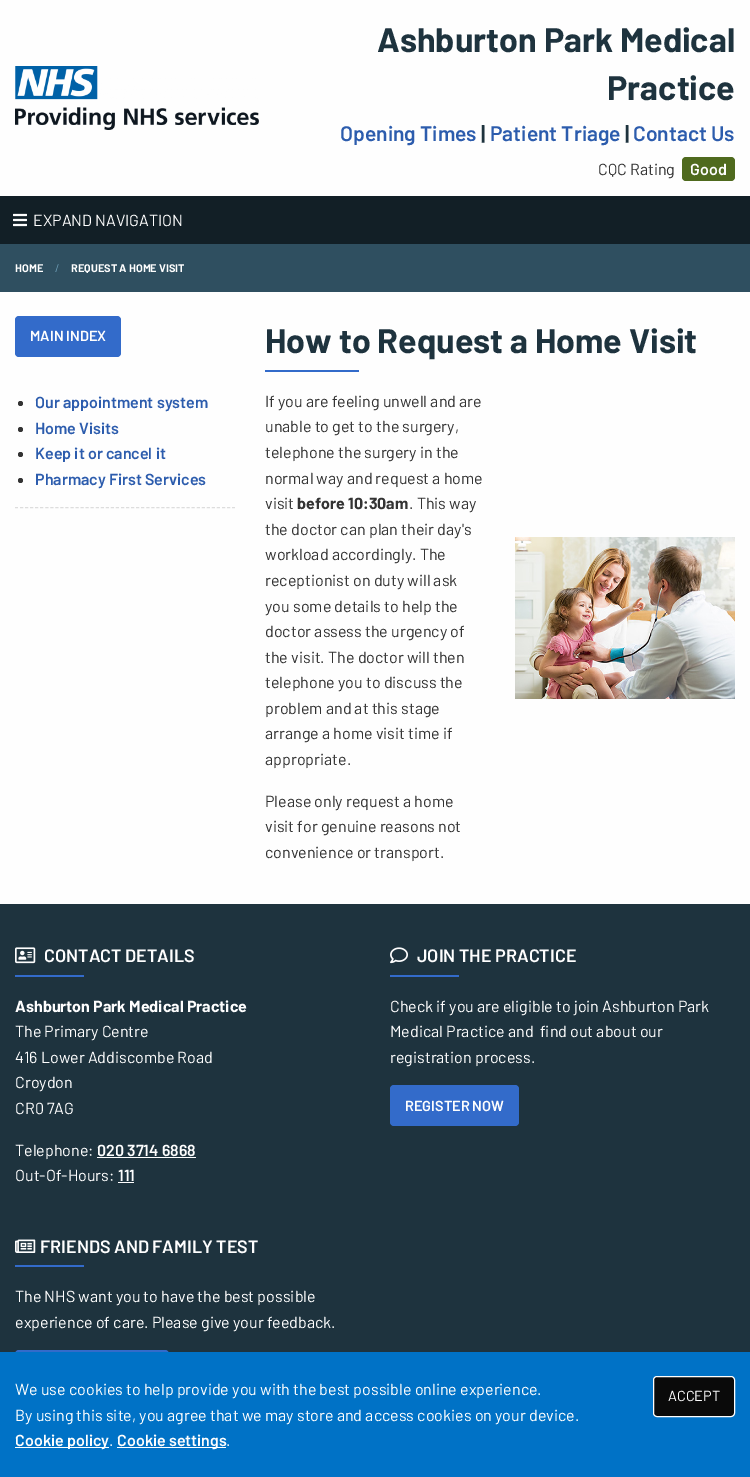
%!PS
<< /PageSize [750 1477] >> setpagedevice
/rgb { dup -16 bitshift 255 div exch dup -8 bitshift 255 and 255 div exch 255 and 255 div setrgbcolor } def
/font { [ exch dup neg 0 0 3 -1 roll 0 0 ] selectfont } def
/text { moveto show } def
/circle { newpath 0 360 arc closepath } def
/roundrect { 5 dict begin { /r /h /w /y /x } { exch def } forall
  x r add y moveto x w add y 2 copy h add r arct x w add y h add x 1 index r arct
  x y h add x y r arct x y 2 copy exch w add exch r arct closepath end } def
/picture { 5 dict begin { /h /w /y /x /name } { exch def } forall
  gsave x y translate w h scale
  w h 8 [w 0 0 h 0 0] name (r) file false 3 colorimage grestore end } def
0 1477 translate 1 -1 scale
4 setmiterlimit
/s1 { /Barlow-Bold 34 font 16#1E333E rgb } def
/s2 { /Barlow-SemiBold 21 font 16#2C5CAD rgb } def
/s3 { /Barlow-Bold 21 font 16#1E333E rgb } def
/s4 { /Barlow-Regular 16 font 16#333333 rgb } def
/s5 { /Barlow-SemiBold 16 font 16#FEFEFE rgb } def
/s6 { /Barlow-Regular 16 font 16#FEFEFE rgb } def
/s7 { /Barlow-Bold 11 font 16#FEFEFE rgb } def
/s8 { /Barlow-Regular 11 font 16#6FA0B9 rgb } def
/s9 { /Barlow-SemiBold 14.5 font 16#FEFEFE rgb } def
/s10 { /Barlow-SemiBold 16 font 16#2C5CAD rgb } def
/s11 { /Barlow-Bold 16 font 16#333333 rgb } def
/s12 { /Barlow-SemiBold 18 font 16#FEFEFE rgb } def
/s13 { /Barlow-Bold 16 font 16#FEFEFE rgb } def
/s14 { /Barlow-Regular 14.5 font 16#FEFEFE rgb } def
16#121F26 rgb
0 0 750 1477 rectfill
16#FEFEFE rgb
0 0 750 196 rectfill
(pic1.raw) 15 66 244 64 picture
s1
(Ashburton Park Medical) 377 52 text
(Practice) 607 100 text
s2
(Opening Times) 340 141 text
s3
(|) 481 141 text
s2
(Patient Triage) 490 141 text
s3
(|) 625 141 text
s2
(Contact Us) 633 141 text
s4
(CQC Rating) 598 175 text
16#4F6A1E rgb
682 157 53 24 4 roundrect fill
s5
(Good) 690 175 text
(pic2.raw) 13 213 14 14 picture
s6
(EXPAND NAVIGATION) 33 226 text
16#2F4F60 rgb
0 244 750 48 rectfill
s7
(HOME) 15 272 text
s8
(/) 55 272 text
s7
(REQUEST A HOME VISIT) 71 272 text
0 292 750 612 rectfill
16#336BCA rgb
15 316 106 41 4 roundrect fill
s9
(MAIN INDEX) 30 341 text
16#333333 rgb
20.5 403.5 2.5 circle fill
s10
(Our appointment system) 35 408 text
16#333333 rgb
20.5 429.5 2.5 circle fill
s10
(Home Visits) 35 434 text
16#333333 rgb
20.5 454.5 2.5 circle fill
s10
(Keep it or cancel it) 35 459 text
16#333333 rgb
20.5 480.5 2.5 circle fill
s10
(Pharmacy First Services) 35 485 text
16#DDDDDD rgb
[3 2.05] 0 setdash
15 507.5 moveto 235 507.5 lineto stroke
s1
(How to Request a Home Visit) 265 353 text
16#336BCA rgb
265 370 94 2 rectfill
s4
(If you are feeling unwell and are) 265 407 text
(unable to get to the surgery,) 265 432 text
(telephone the surgery in the) 265 458 text
(normal way and request a home) 265 484 text
(visit) 265 509 text
s11
(before 10:30am) 297 509 text
s4
(. This way) 409 509 text
(the doctor can plan their day's) 265 535 text
(workload accordingly. The) 265 560 text
(receptionist on duty will ask) 265 586 text
(you some details to help the) 265 612 text
(doctor assess the urgency of) 265 637 text
(the visit. The doctor will then) 265 663 text
(telephone you to discuss the) 265 688 text
(problem and at this stage) 265 714 text
(arrange a home visit time if) 265 739 text
(appropriate.) 265 765 text
(Please only request a home) 265 807 text
(visit for genuine reasons not) 265 832 text
(convenience or transport.) 265 858 text
(pic3.raw) 515 537 220 162 picture
16#1E333E rgb
0 904 750 448 rectfill
(pic4.raw) 15 947 21 17 picture
s12
(CONTACT DETAILS) 44 962 text
16#336BCA rgb
15 975 69 2 rectfill
s13
(Ashburton Park Medical Practice) 15 1012 text
s6
(The Primary Centre) 15 1037 text
(416 Lower Addiscombe Road) 15 1063 text
(Croydon) 15 1088 text
(CR0 7AG) 15 1114 text
(Telephone:) 15 1156 text
s5
(020 3714 6868) 97 1156 text
97 1157 99 1 rectfill
s6
(Out-Of-Hours:) 15 1181 text
s5
(111) 118 1181 text
118 1182 16 1 rectfill
(pic5.raw) 390 947 18 17 picture
s12
(JOIN THE PRACTICE) 417 962 text
16#336BCA rgb
390 975 69 2 rectfill
s6
(Check if you are eligible to join Ashburton Park) 390 1012 text
(Medical Practice and  find out about our) 390 1037 text
(registration process.) 390 1063 text
16#336BCA rgb
390 1085 129 41 4 roundrect fill
s9
(REGISTER NOW) 405 1111 text
(pic6.raw) 15 1239 21 14 picture
s12
(FRIENDS AND FAMILY TEST) 40 1253 text
16#336BCA rgb
15 1265 69 2 rectfill
s6
(The NHS want you to have the best possible) 15 1302 text
(experience of care. Please give your feedback.) 15 1328 text
16#336BCA rgb
15 1350 154 41 4 roundrect fill
16#0072C6 rgb
0 1352 750 125 rectfill
s6
(We use cookies to help provide you with the best possible online experience.) 15 1395 text
(By using this site, you agree that we may store and access cookies on your device.) 15 1421 text
15 1447 94 1 rectfill
s5
(Cookie policy) 15 1446 text
s6
(.) 109 1446 text
117 1447 109 1 rectfill
s5
(Cookie settings) 117 1446 text
s6
(.) 226 1446 text
16#0A0A0A rgb
653.5 1376.5 81 40 3.5 roundrect gsave fill grestore
16#FEFEFE rgb
[] 0 setdash
stroke
s14
(ACCEPT) 668 1401 text
showpage
